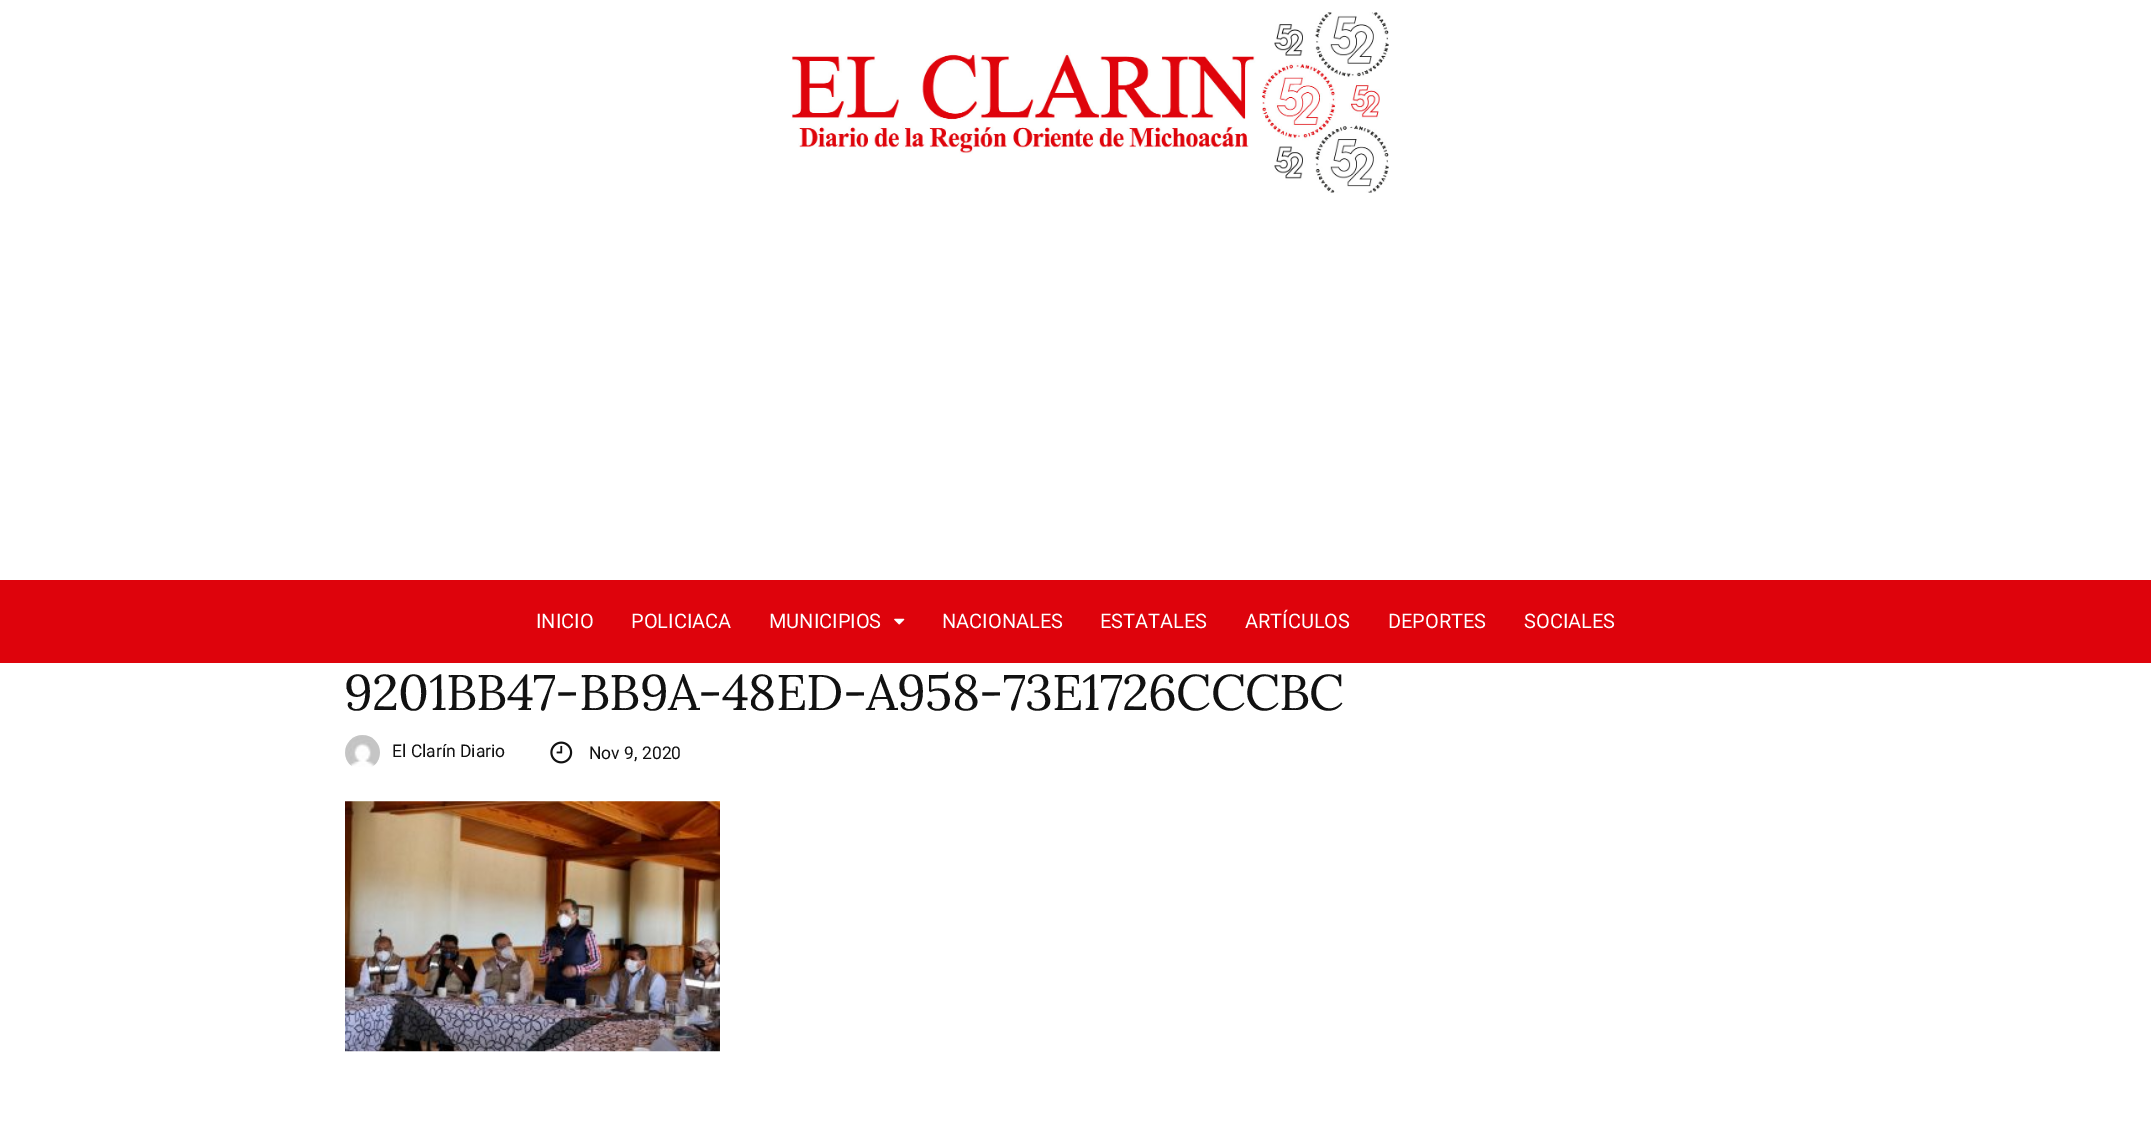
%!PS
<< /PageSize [2151 1135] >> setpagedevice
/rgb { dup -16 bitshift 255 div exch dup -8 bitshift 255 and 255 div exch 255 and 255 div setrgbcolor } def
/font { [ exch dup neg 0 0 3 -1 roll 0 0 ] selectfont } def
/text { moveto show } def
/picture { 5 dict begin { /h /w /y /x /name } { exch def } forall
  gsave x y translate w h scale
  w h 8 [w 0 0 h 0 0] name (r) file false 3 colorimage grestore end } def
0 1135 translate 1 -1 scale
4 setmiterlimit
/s1 { /Roboto-Regular 20 font 16#FFFFFF rgb } def
/s2 { /Roboto-Regular 17.5 font 16#111111 rgb } def
16#FFFFFF rgb
0 0 2151 1135 rectfill
(pic1.raw) 791 12 598 181 picture
16#DE030C rgb
0 580 2151 83 rectfill
s1
(INICIO) 536 628 text
(POLICIACA) 631 628 text
(MUNICIPIOS) 769 628 text
(pic2.raw) 894 618 11 7 picture
(NACIONALES) 942 628 text
(ESTATALES) 1100 628 text
(ARTÍCULOS) 1245 628 text
(DEPORTES) 1388 628 text
(SOCIALES) 1524 628 text
/Lora-Regular 50 font
16#111111 rgb
344 710 moveto -0.75 0 (9201BB47-BB9A-48ED-A958-73E1726CCCBC) ashow
(pic3.raw) 345 735 35 32 picture
s2
(El Clarín Diario) 392 757 text
(pic4.raw) 550 741 23 23 picture
(Nov 9, 2020) 589 759 text
(pic5.raw) 345 801 375 251 picture
showpage
